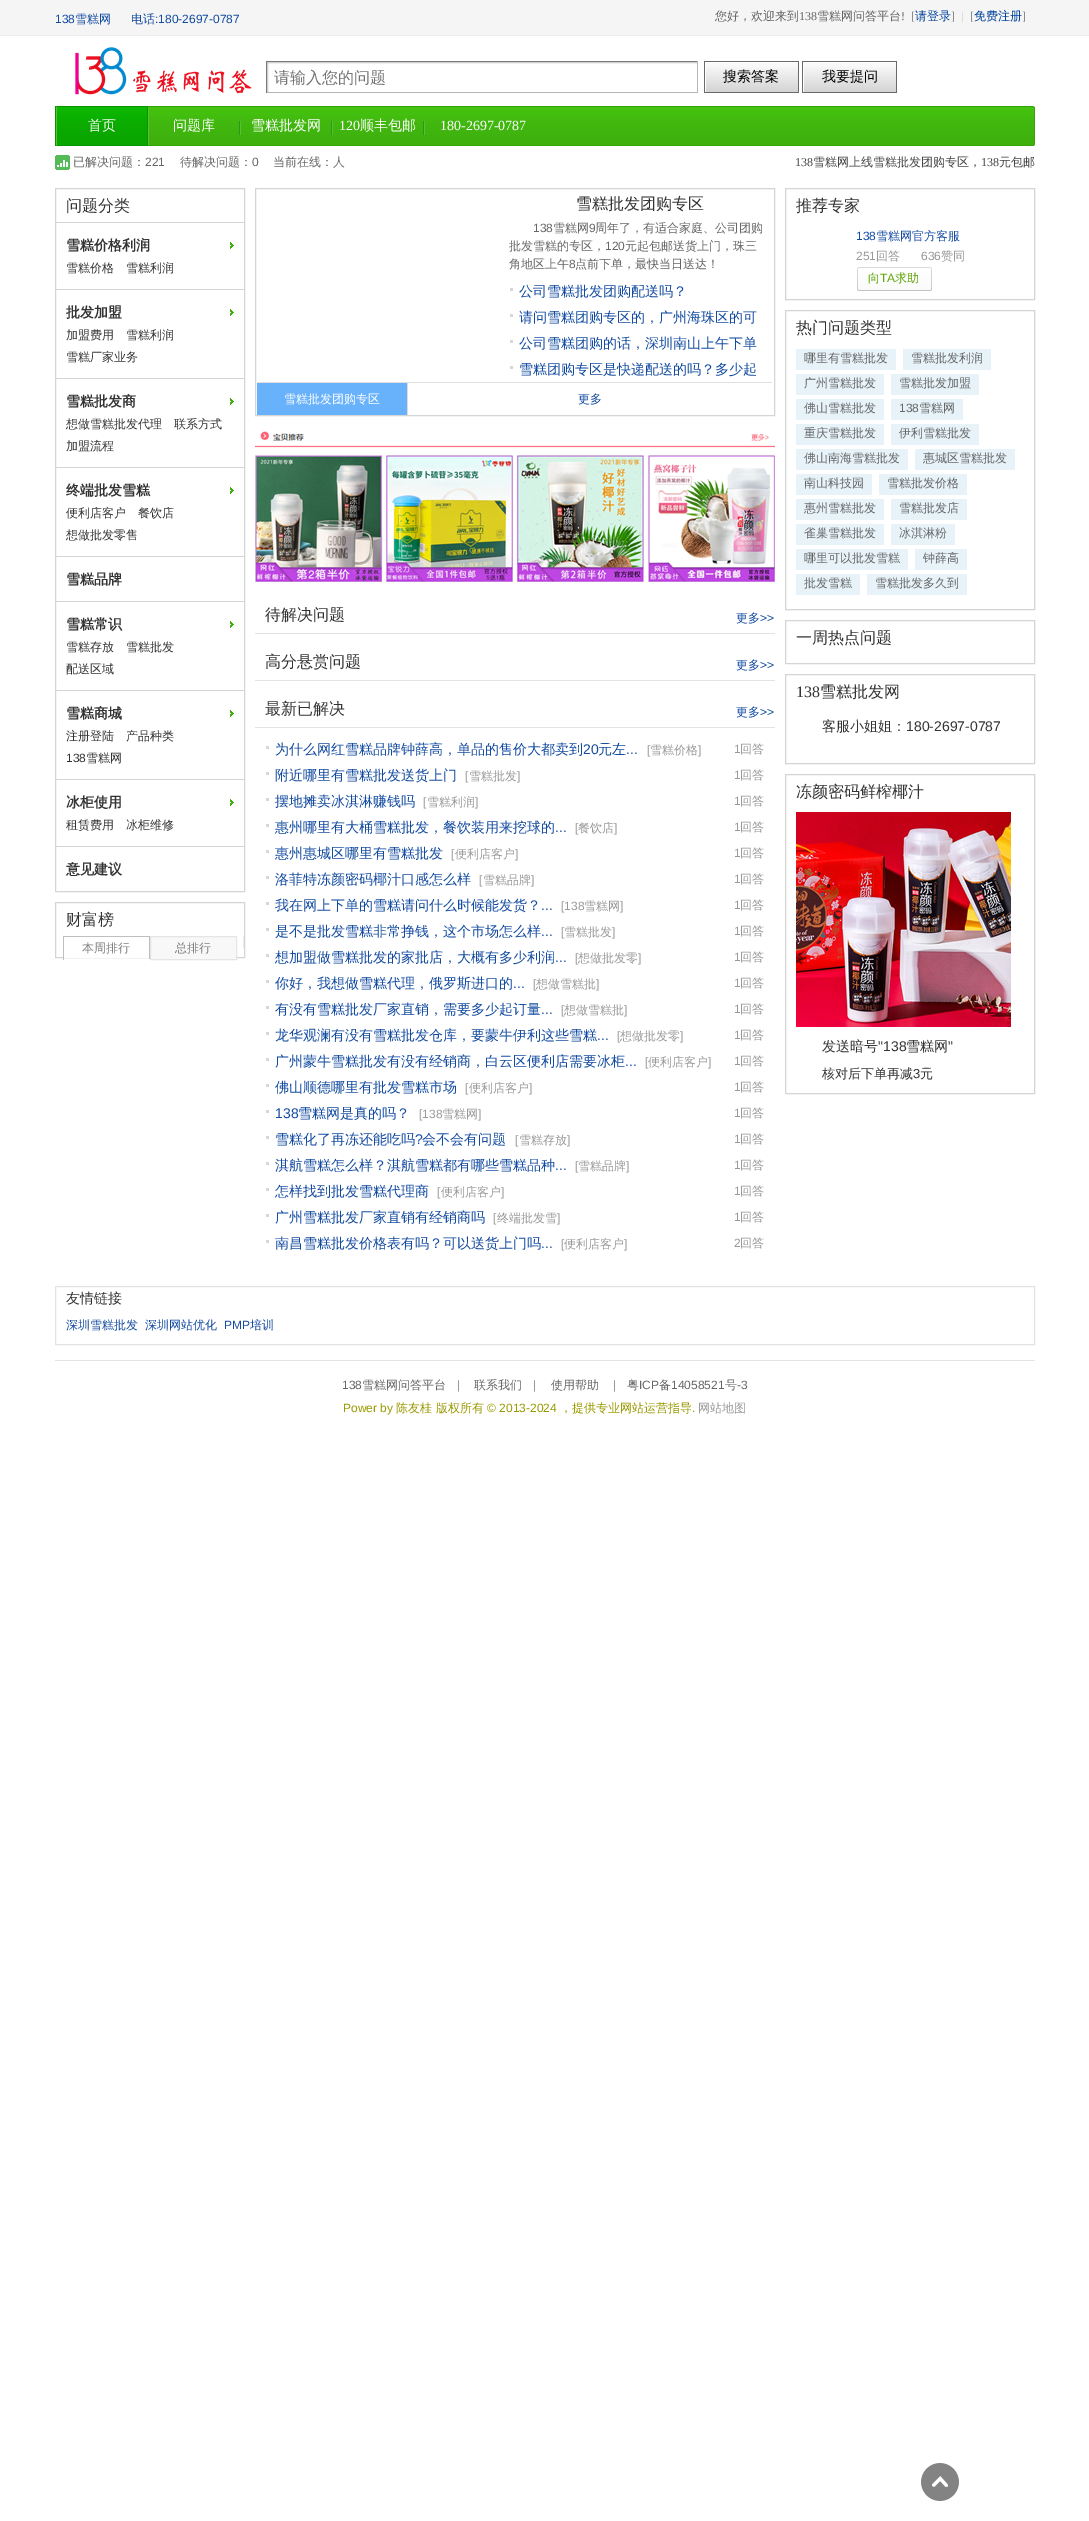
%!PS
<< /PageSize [1089 2521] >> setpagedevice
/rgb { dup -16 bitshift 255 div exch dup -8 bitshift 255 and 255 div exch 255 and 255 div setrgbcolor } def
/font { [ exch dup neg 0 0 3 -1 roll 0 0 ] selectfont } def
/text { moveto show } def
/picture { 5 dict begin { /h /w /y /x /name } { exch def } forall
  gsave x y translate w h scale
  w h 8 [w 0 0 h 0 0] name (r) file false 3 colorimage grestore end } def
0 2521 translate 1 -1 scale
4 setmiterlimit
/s1 { /LiberationSans-Regular 12 font 16#134BA0 rgb } def
/s2 { /WenQuanYiZenHei-Medium 12 font 16#134BA0 rgb } def
/s3 { /WenQuanYiZenHei-Medium 12 font 16#666666 rgb } def
/s4 { /LiberationSerif-Regular 12 font 16#666666 rgb } def
/s5 { /WenQuanYiZenHei-Medium 12 font 16#01439A rgb } def
/s6 { /LiberationSerif-Regular 12 font 16#CCCCCC rgb } def
/s7 { /WenQuanYiZenHei-Medium 16 font 16#757575 rgb } def
/s8 { /WenQuanYiZenHei-Medium 14 font 16#000000 rgb } def
/s9 { /WenQuanYiZenHei-Medium 14 font 16#FFFFFF rgb } def
/s10 { /LiberationSerif-Regular 14 font 16#FFFFFF rgb } def
/s11 { /LiberationSans-Regular 12 font 16#666666 rgb } def
/s12 { /LiberationSerif-Regular 12 font 16#444444 rgb } def
/s13 { /WenQuanYiZenHei-Medium 12 font 16#444444 rgb } def
/s14 { /WenQuanYiZenHei-Medium 16 font 16#333333 rgb } def
/s15 { /WenQuanYiZenHei-Bold 14 font 16#333333 rgb } def
/s16 { /WenQuanYiZenHei-Medium 12 font 16#333333 rgb } def
/s17 { /LiberationSans-Regular 12 font 16#333333 rgb } def
/s18 { /WenQuanYiZenHei-Medium 12 font 16#808080 rgb } def
/s19 { /WenQuanYiZenHei-Medium 14 font 16#134BA0 rgb } def
/s20 { /WenQuanYiZenHei-Medium 12 font 16#FFFFFF rgb } def
/s21 { /LiberationSans-Regular 14 font 16#134BA0 rgb } def
/s22 { /LiberationSans-Regular 12 font 16#999999 rgb } def
/s23 { /WenQuanYiZenHei-Medium 12 font 16#999999 rgb } def
/s24 { /WenQuanYiZenHei-Medium 12 font 16#60A506 rgb } def
/s25 { /LiberationSans-Regular 12 font 16#60A506 rgb } def
/s26 { /LiberationSerif-Regular 16 font 16#333333 rgb } def
/s27 { /WenQuanYiZenHei-Medium 14 font 16#333333 rgb } def
/s28 { /LiberationSans-Regular 14 font 16#333333 rgb } def
/s29 { /WenQuanYiZenHei-Medium 13 font 16#333333 rgb } def
/s30 { /LiberationSans-Regular 13 font 16#333333 rgb } def
/s31 { /LiberationSans-Regular 12 font 16#999900 rgb } def
/s32 { /WenQuanYiZenHei-Medium 12 font 16#999900 rgb } def
16#FFFFFF rgb
0 0 1089 2521 rectfill
16#F5F5F5 rgb
0 0 1089 35 rectfill
16#EEEEEE rgb
0 35 1089 1 rectfill
s1
(138) 55 23 text
s2
(雪糕网) 75 23 text
(电话) 131 23 text
s1
(:180-2697-0787) 155 23 text
s3
(您好，欢迎来到) 715 20 text
s4
(138) 799 20 text
s3
(雪糕网问答平台) 817 20 text
s4
(!  [) 901 20 text
s5
(请登录) 915 20 text
s4
(]) 951 20 text
s6
(|) 961 20 text
s4
([) 970 20 text
s5
(免费注册) 974 20 text
s4
(]) 1022 20 text
(pic1.raw) 75 47 177 48 picture
(pic2.raw) 267 62 430 30 picture
16#7B7B7B rgb
266 61 432 1 rectfill
16#B6B6B6 rgb
697 61 1 32 rectfill
266 92 432 1 rectfill
16#7B7B7B rgb
266 61 1 32 rectfill
s7
(请输入您的问题) 274 83 text
(pic3.raw) 704 61 95 32 picture
s8
(搜索答案) 723 81 text
(pic3.raw) 802 61 95 32 picture
(我要提问) 822 81 text
(pic4.raw) 149 106 884 40 picture
(pic5.raw) 55 106 94 40 picture
s9
(首页) 88 130 text
(pic6.raw) 239 121 2 14 picture
(问题库) 173 130 text
(pic6.raw) 331 121 2 14 picture
(雪糕批发网) 251 130 text
(pic6.raw) 423 121 2 14 picture
s10
(120) 339 130 text
s9
(顺丰包邮) 360 130 text
s10
(180-2697-0787) 440 130 text
(pic7.raw) 1033 106 2 40 picture
(pic8.raw) 55 155 15 15 picture
s3
(已解决问题：) 73 166 text
s11
(221) 145 166 text
s3
(待解决问题：) 180 166 text
s11
(0) 252 166 text
s3
(当前在线：人) 273 166 text
s12
(138) 795 166 text
s13
(雪糕网上线雪糕批发团购专区，) 813 166 text
s12
(138) 981 166 text
s13
(元包邮) 999 166 text
16#D5D5D5 rgb
55.5 188.5 189 703 rectstroke
s14
(问题分类) 66 211 text
(pic9.raw) 230 242 4 7 picture
16#D5D5D5 rgb
56 222 188 1 rectfill
s15
(雪糕价格利润) 66 250 text
s16
(雪糕价格) 66 272 text
(雪糕利润) 126 272 text
(pic9.raw) 230 309 4 7 picture
16#D5D5D5 rgb
56 289 188 1 rectfill
s15
(批发加盟) 66 317 text
s16
(加盟费用) 66 339 text
(雪糕利润) 126 339 text
(雪糕厂家业务) 66 361 text
(pic9.raw) 230 398 4 7 picture
16#D5D5D5 rgb
56 378 188 1 rectfill
s15
(雪糕批发商) 66 406 text
s16
(想做雪糕批发代理) 66 428 text
(联系方式) 174 428 text
(加盟流程) 66 450 text
(pic9.raw) 230 487 4 7 picture
16#D5D5D5 rgb
56 467 188 1 rectfill
s15
(终端批发雪糕) 66 495 text
s16
(便利店客户) 66 517 text
(餐饮店) 138 517 text
(想做批发零售) 66 539 text
16#D5D5D5 rgb
56 556 188 1 rectfill
s15
(雪糕品牌) 66 584 text
(pic9.raw) 230 621 4 7 picture
16#D5D5D5 rgb
56 601 188 1 rectfill
s15
(雪糕常识) 66 629 text
s16
(雪糕存放) 66 651 text
(雪糕批发) 126 651 text
(配送区域) 66 673 text
(pic9.raw) 230 710 4 7 picture
16#D5D5D5 rgb
56 690 188 1 rectfill
s15
(雪糕商城) 66 718 text
s16
(注册登陆) 66 740 text
(产品种类) 126 740 text
s17
(138) 66 762 text
s16
(雪糕网) 86 762 text
(pic9.raw) 230 799 4 7 picture
16#D5D5D5 rgb
56 779 188 1 rectfill
s15
(冰柜使用) 66 807 text
s16
(租赁费用) 66 829 text
(冰柜维修) 126 829 text
16#D5D5D5 rgb
56 846 188 1 rectfill
s15
(意见建议) 66 874 text
16#D5D5D5 rgb
55.5 902.5 189 55 rectstroke
s14
(财富榜) 66 925 text
16#EAEAEA rgb
243 936 1 12 rectfill
16#FFFFFF rgb
64 957 85 1 rectfill
16#BFBFBF rgb
63 936 87 1 rectfill
149 936 1 24 rectfill
16#FFFFFF rgb
149 959 1 1 rectfill
16#BFBFBF rgb
63 936 1 24 rectfill
s18
(本周排行) 82 952 text
16#F8F8F8 rgb
150.5 936.5 moveto 236.5 936.5 lineto 236.5 959.5 lineto 150.5 959.5 lineto closepath gsave fill grestore
16#E5E5E5 rgb
stroke
s18
(总排行) 175 952 text
16#D5D5D5 rgb
255.5 188.5 519 227 rectstroke
s14
(雪糕批发团购专区) 576 209 text
s11
(138) 533 232 text
s3
(雪糕网) 553 232 text
s11
(9) 589 232 text
s3
(周年了，有适合家庭、公司团购) 595 232 text
(批发雪糕的专区，) 509 250 text
s11
(120) 605 250 text
s3
(元起包邮送货上门，珠三) 625 250 text
(角地区上午) 509 268 text
s11
(8) 569 268 text
s3
(点前下单，最快当日送达！) 575 268 text
16#D8D7D8 rgb
510 288 3 3 rectfill
s19
(公司雪糕批发团购配送吗？) 519 296 text
16#D8D7D8 rgb
510 314 3 3 rectfill
s19
(请问雪糕团购专区的，广州海珠区的可) 519 322 text
16#D8D7D8 rgb
510 340 3 3 rectfill
s19
(公司雪糕团购的话，深圳南山上午下单) 519 348 text
16#D8D7D8 rgb
510 366 3 3 rectfill
s19
(雪糕团购专区是快递配送的吗？多少起) 519 374 text
16#E0E0E0 rgb
257 382 515 1 rectfill
16#DCDCDC rgb
407 383 1 32 rectfill
16#68B2FC rgb
257 383 150 32 rectfill
s20
(雪糕批发团购专区) 284 403 text
s2
(更多) 578 403 text
(pic10.raw) 255 431 520 151 picture
16#E3E3E3 rgb
255 633 520 1 rectfill
s14
(待解决问题) 265 620 text
s2
(更多) 736 622 text
s1
(>>) 760 622 text
16#E3E3E3 rgb
255 680 520 1 rectfill
s14
(高分悬赏问题) 265 667 text
s2
(更多) 736 669 text
s1
(>>) 760 669 text
16#E3E3E3 rgb
255 727 520 1 rectfill
s14
(最新已解决) 265 714 text
s2
(更多) 736 716 text
s1
(>>) 760 716 text
16#D8D7D8 rgb
266 746 3 3 rectfill
s19
(为什么网红雪糕品牌钟薛高，单品的售价大都卖到) 275 754 text
s21
(20) 583 754 text
s19
(元左) 598 754 text
s21
(...) 626 754 text
s22
([) 647 754 text
s23
(雪糕价格) 650 754 text
s22
(]) 698 754 text
(1) 734 753 text
s23
(回答) 740 753 text
16#D8D7D8 rgb
266 772 3 3 rectfill
s19
(附近哪里有雪糕批发送货上门) 275 780 text
s22
([) 465 780 text
s23
(雪糕批发) 469 780 text
s22
(]) 517 780 text
(1) 734 779 text
s23
(回答) 740 779 text
16#D8D7D8 rgb
266 798 3 3 rectfill
s19
(摆地摊卖冰淇淋赚钱吗) 275 806 text
s22
([) 423 806 text
s23
(雪糕利润) 427 806 text
s22
(]) 475 806 text
(1) 734 805 text
s23
(回答) 740 805 text
16#D8D7D8 rgb
266 824 3 3 rectfill
s19
(惠州哪里有大桶雪糕批发，餐饮装用来挖球的) 275 832 text
s21
(...) 555 832 text
s22
([) 575 832 text
s23
(餐饮店) 578 832 text
s22
(]) 614 832 text
(1) 734 831 text
s23
(回答) 740 831 text
16#D8D7D8 rgb
266 850 3 3 rectfill
s19
(惠州惠城区哪里有雪糕批发) 275 858 text
s22
([) 451 858 text
s23
(便利店客户) 455 858 text
s22
(]) 515 858 text
(1) 734 857 text
s23
(回答) 740 857 text
16#D8D7D8 rgb
266 876 3 3 rectfill
s19
(洛菲特冻颜密码椰汁口感怎么样) 275 884 text
s22
([) 479 884 text
s23
(雪糕品牌) 483 884 text
s22
(]) 531 884 text
(1) 734 883 text
s23
(回答) 740 883 text
16#D8D7D8 rgb
266 902 3 3 rectfill
s19
(我在网上下单的雪糕请问什么时候能发货？) 275 910 text
s21
(...) 541 910 text
s22
([138) 561 910 text
s23
(雪糕网) 584 910 text
s22
(]) 620 910 text
(1) 734 909 text
s23
(回答) 740 909 text
16#D8D7D8 rgb
266 928 3 3 rectfill
s19
(是不是批发雪糕非常挣钱，这个市场怎么样) 275 936 text
s21
(...) 541 936 text
s22
([) 561 936 text
s23
(雪糕批发) 564 936 text
s22
(]) 612 936 text
(1) 734 935 text
s23
(回答) 740 935 text
16#D8D7D8 rgb
266 954 3 3 rectfill
s19
(想加盟做雪糕批发的家批店，大概有多少利润) 275 962 text
s21
(...) 555 962 text
s22
([) 575 962 text
s23
(想做批发零) 578 962 text
s22
(]) 638 962 text
(1) 734 961 text
s23
(回答) 740 961 text
16#D8D7D8 rgb
266 980 3 3 rectfill
s19
(你好，我想做雪糕代理，俄罗斯进口的) 275 988 text
s21
(...) 513 988 text
s22
([) 533 988 text
s23
(想做雪糕批) 536 988 text
s22
(]) 596 988 text
(1) 734 987 text
s23
(回答) 740 987 text
16#D8D7D8 rgb
266 1006 3 3 rectfill
s19
(有没有雪糕批发厂家直销，需要多少起订量) 275 1014 text
s21
(...) 541 1014 text
s22
([) 561 1014 text
s23
(想做雪糕批) 564 1014 text
s22
(]) 624 1014 text
(1) 734 1013 text
s23
(回答) 740 1013 text
16#D8D7D8 rgb
266 1032 3 3 rectfill
s19
(龙华观澜有没有雪糕批发仓库，要蒙牛伊利这些雪糕) 275 1040 text
s21
(...) 597 1040 text
s22
([) 617 1040 text
s23
(想做批发零) 620 1040 text
s22
(]) 680 1040 text
(1) 734 1039 text
s23
(回答) 740 1039 text
16#D8D7D8 rgb
266 1058 3 3 rectfill
s19
(广州蒙牛雪糕批发有没有经销商，白云区便利店需要冰柜) 275 1066 text
s21
(...) 625 1066 text
s22
([) 645 1066 text
s23
(便利店客户) 648 1066 text
s22
(]) 708 1066 text
(1) 734 1065 text
s23
(回答) 740 1065 text
16#D8D7D8 rgb
266 1084 3 3 rectfill
s19
(佛山顺德哪里有批发雪糕市场) 275 1092 text
s22
([) 465 1092 text
s23
(便利店客户) 469 1092 text
s22
(]) 529 1092 text
(1) 734 1091 text
s23
(回答) 740 1091 text
16#D8D7D8 rgb
266 1110 3 3 rectfill
s21
(138) 275 1118 text
s19
(雪糕网是真的吗？) 298 1118 text
s22
([138) 419 1118 text
s23
(雪糕网) 442 1118 text
s22
(]) 478 1118 text
(1) 734 1117 text
s23
(回答) 740 1117 text
16#D8D7D8 rgb
266 1136 3 3 rectfill
s19
(雪糕化了再冻还能吃吗) 275 1144 text
s21
(?) 415 1144 text
s19
(会不会有问题) 422 1144 text
s22
([) 515 1144 text
s23
(雪糕存放) 519 1144 text
s22
(]) 567 1144 text
(1) 734 1143 text
s23
(回答) 740 1143 text
16#D8D7D8 rgb
266 1162 3 3 rectfill
s19
(淇航雪糕怎么样？淇航雪糕都有哪些雪糕品种) 275 1170 text
s21
(...) 555 1170 text
s22
([) 575 1170 text
s23
(雪糕品牌) 578 1170 text
s22
(]) 626 1170 text
(1) 734 1169 text
s23
(回答) 740 1169 text
16#D8D7D8 rgb
266 1188 3 3 rectfill
s19
(怎样找到批发雪糕代理商) 275 1196 text
s22
([) 437 1196 text
s23
(便利店客户) 441 1196 text
s22
(]) 501 1196 text
(1) 734 1195 text
s23
(回答) 740 1195 text
16#D8D7D8 rgb
266 1214 3 3 rectfill
s19
(广州雪糕批发厂家直销有经销商吗) 275 1222 text
s22
([) 493 1222 text
s23
(终端批发雪) 497 1222 text
s22
(]) 557 1222 text
(1) 734 1221 text
s23
(回答) 740 1221 text
16#D8D7D8 rgb
266 1240 3 3 rectfill
s19
(南昌雪糕批发价格表有吗？可以送货上门吗) 275 1248 text
s21
(...) 541 1248 text
s22
([) 561 1248 text
s23
(便利店客户) 564 1248 text
s22
(]) 624 1248 text
(2) 734 1247 text
s23
(回答) 740 1247 text
16#D5D5D5 rgb
785.5 188.5 249 111 rectstroke
s14
(推荐专家) 796 211 text
s1
(138) 856 240 text
s2
(雪糕网官方客服) 876 240 text
s22
(251) 856 260 text
s23
(回答) 876 260 text
s22
(636) 921 260 text
s23
(赞同) 941 260 text
(pic11.raw) 857 267 75 24 picture
s24
(向) 868 282 text
s25
(TA) 880 282 text
s24
(求助) 895 282 text
16#D5D5D5 rgb
785.5 310.5 249 299 rectstroke
s14
(热门问题类型) 796 333 text
16#E7F3F9 rgb
796 349 100 21 rectfill
s3
(哪里有雪糕批发) 804 362 text
16#E7F3F9 rgb
903 349 88 21 rectfill
s3
(雪糕批发利润) 911 362 text
16#E7F3F9 rgb
796 374 88 21 rectfill
s3
(广州雪糕批发) 804 387 text
16#E7F3F9 rgb
891 374 88 21 rectfill
s3
(雪糕批发加盟) 899 387 text
16#E7F3F9 rgb
796 399 88 21 rectfill
s3
(佛山雪糕批发) 804 412 text
16#E7F3F9 rgb
891 399 72 21 rectfill
s11
(138) 899 412 text
s3
(雪糕网) 919 412 text
16#E7F3F9 rgb
796 424 88 21 rectfill
s3
(重庆雪糕批发) 804 437 text
16#E7F3F9 rgb
891 424 88 21 rectfill
s3
(伊利雪糕批发) 899 437 text
16#E7F3F9 rgb
796 449 112 21 rectfill
s3
(佛山南海雪糕批发) 804 462 text
16#E7F3F9 rgb
915 449 100 21 rectfill
s3
(惠城区雪糕批发) 923 462 text
16#E7F3F9 rgb
796 474 76 21 rectfill
s3
(南山科技园) 804 487 text
16#E7F3F9 rgb
879 474 88 21 rectfill
s3
(雪糕批发价格) 887 487 text
16#E7F3F9 rgb
796 499 88 21 rectfill
s3
(惠州雪糕批发) 804 512 text
16#E7F3F9 rgb
891 499 76 21 rectfill
s3
(雪糕批发店) 899 512 text
16#E7F3F9 rgb
796 524 88 21 rectfill
s3
(雀巢雪糕批发) 804 537 text
16#E7F3F9 rgb
891 524 64 21 rectfill
s3
(冰淇淋粉) 899 537 text
16#E7F3F9 rgb
796 549 112 21 rectfill
s3
(哪里可以批发雪糕) 804 562 text
16#E7F3F9 rgb
915 549 52 21 rectfill
s3
(钟薛高) 923 562 text
16#E7F3F9 rgb
796 574 64 21 rectfill
s3
(批发雪糕) 804 587 text
16#E7F3F9 rgb
867 574 100 21 rectfill
s3
(雪糕批发多久到) 875 587 text
16#D5D5D5 rgb
785.5 620.5 249 43 rectstroke
s14
(一周热点问题) 796 643 text
16#D5D5D5 rgb
785.5 674.5 249 89 rectstroke
s26
(138) 796 697 text
s14
(雪糕批发网) 820 697 text
s27
(客服小姐姐：) 822 731 text
s28
(180-2697-0787) 906 731 text
16#D5D5D5 rgb
785.5 774.5 249 319 rectstroke
s14
(冻颜密码鲜榨椰汁) 796 797 text
(pic12.raw) 796 812 215 215 picture
s27
(发送暗号) 822 1051 text
s28
("138) 878 1051 text
s27
(雪糕网) 906 1051 text
s28
(") 948 1051 text
s29
(核对后下单再减) 822 1078 text
s30
(3) 913 1078 text
s29
(元) 920 1078 text
16#E3E3E3 rgb
55.5 1286.5 979 58 rectstroke
s27
(友情链接) 66 1303 text
s2
(深圳雪糕批发) 66 1329 text
(深圳网站优化) 145 1329 text
s1
(PMP) 224 1329 text
s2
(培训) 250 1329 text
16#E3E3E3 rgb
55 1360 980 1 rectfill
s11
(138) 342 1389 text
s3
(雪糕网问答平台) 362 1389 text
s22
(|) 457 1389 text
s3
(联系我们) 474 1389 text
s22
(|) 533 1389 text
s3
(使用帮助) 551 1389 text
s22
(|) 613 1389 text
s3
(粤) 627 1389 text
s11
(ICP) 639 1389 text
s3
(备) 659 1389 text
s11
(14058521) 671 1389 text
s3
(号) 725 1389 text
s11
(-3) 737 1389 text
s31
(Power by) 343 1412 text
s32
(陈友桂 版权所有) 396 1412 text
s31
(© 2013-2024) 487 1412 text
s32
(，提供专业网站运营指导) 560 1412 text
s31
(.) 692 1412 text
s23
(网站地图) 698 1412 text
(pic13.raw) 921 2463 38 38 picture
showpage
